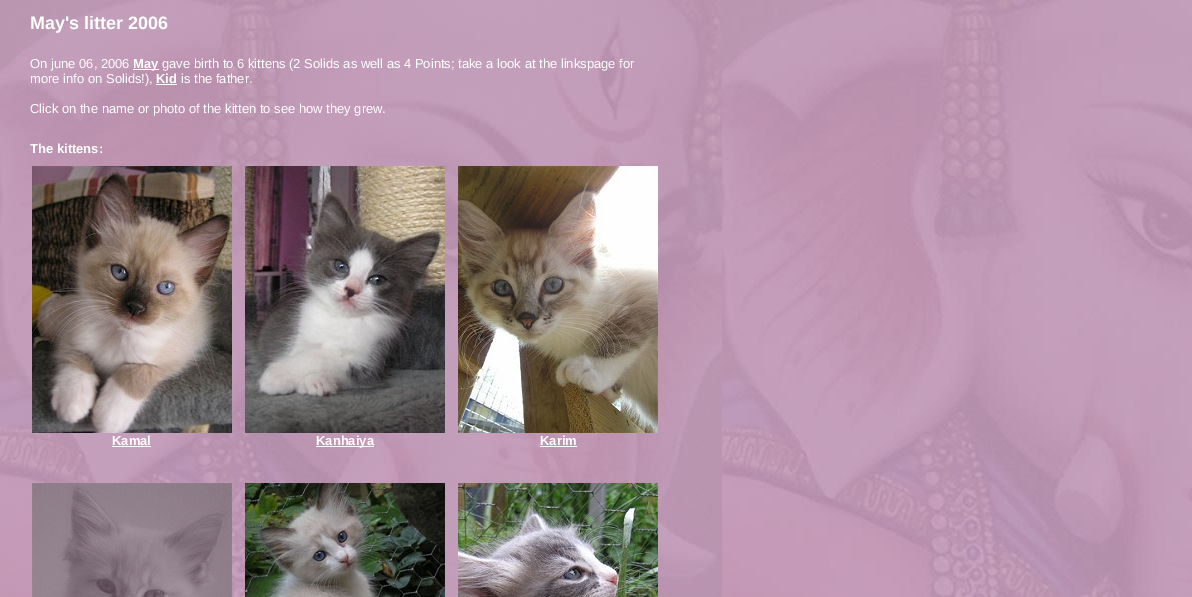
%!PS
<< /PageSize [1192 597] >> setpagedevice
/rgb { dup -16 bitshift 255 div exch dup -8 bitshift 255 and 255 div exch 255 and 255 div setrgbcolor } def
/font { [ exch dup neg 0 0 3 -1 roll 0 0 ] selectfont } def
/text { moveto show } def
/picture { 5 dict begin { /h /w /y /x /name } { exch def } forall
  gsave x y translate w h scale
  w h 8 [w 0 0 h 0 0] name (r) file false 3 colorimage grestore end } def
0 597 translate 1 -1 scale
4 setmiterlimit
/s1 { /LiberationSans-Bold 18 font 16#FFFFFF rgb } def
/s2 { /LiberationSans-Regular 13 font 16#FFFFFF rgb } def
/s3 { /LiberationSans-Bold 13 font 16#FFFFFF rgb } def
16#FFFFFF rgb
0 0 1192 597 rectfill
(pic1.raw) 0 0 1192 597 picture
s1
(May's litter 2006) 30 29 text
s2
(On june 06, 2006) 30 68 text
133 69 26 1 rectfill
s3
(May) 133 68 text
s2
(gave birth to 6 kittens \(2 Solids as well as 4 Points; take a look at the linkspage for) 162 68 text
(more info on Solids!\),) 30 83 text
s3
(Kid) 156 83 text
156 84 21 1 rectfill
s2
(is the father.) 181 83 text
(Click on the name or photo of the kitten to see how they grew.) 30 113 text
s3
(The kittens:) 30 153 text
(pic2.raw) 32 166 200 267 picture
(Kamal) 112 445 text
112 446 39 1 rectfill
(pic3.raw) 245 166 200 267 picture
316 446 58 1 rectfill
(Kanhaiya) 316 445 text
(pic4.raw) 458 166 200 267 picture
(Karim) 540 445 text
540 446 37 1 rectfill
(pic5.raw) 32 483 200 114 picture
(pic6.raw) 245 483 200 114 picture
(pic7.raw) 458 483 200 114 picture
showpage
